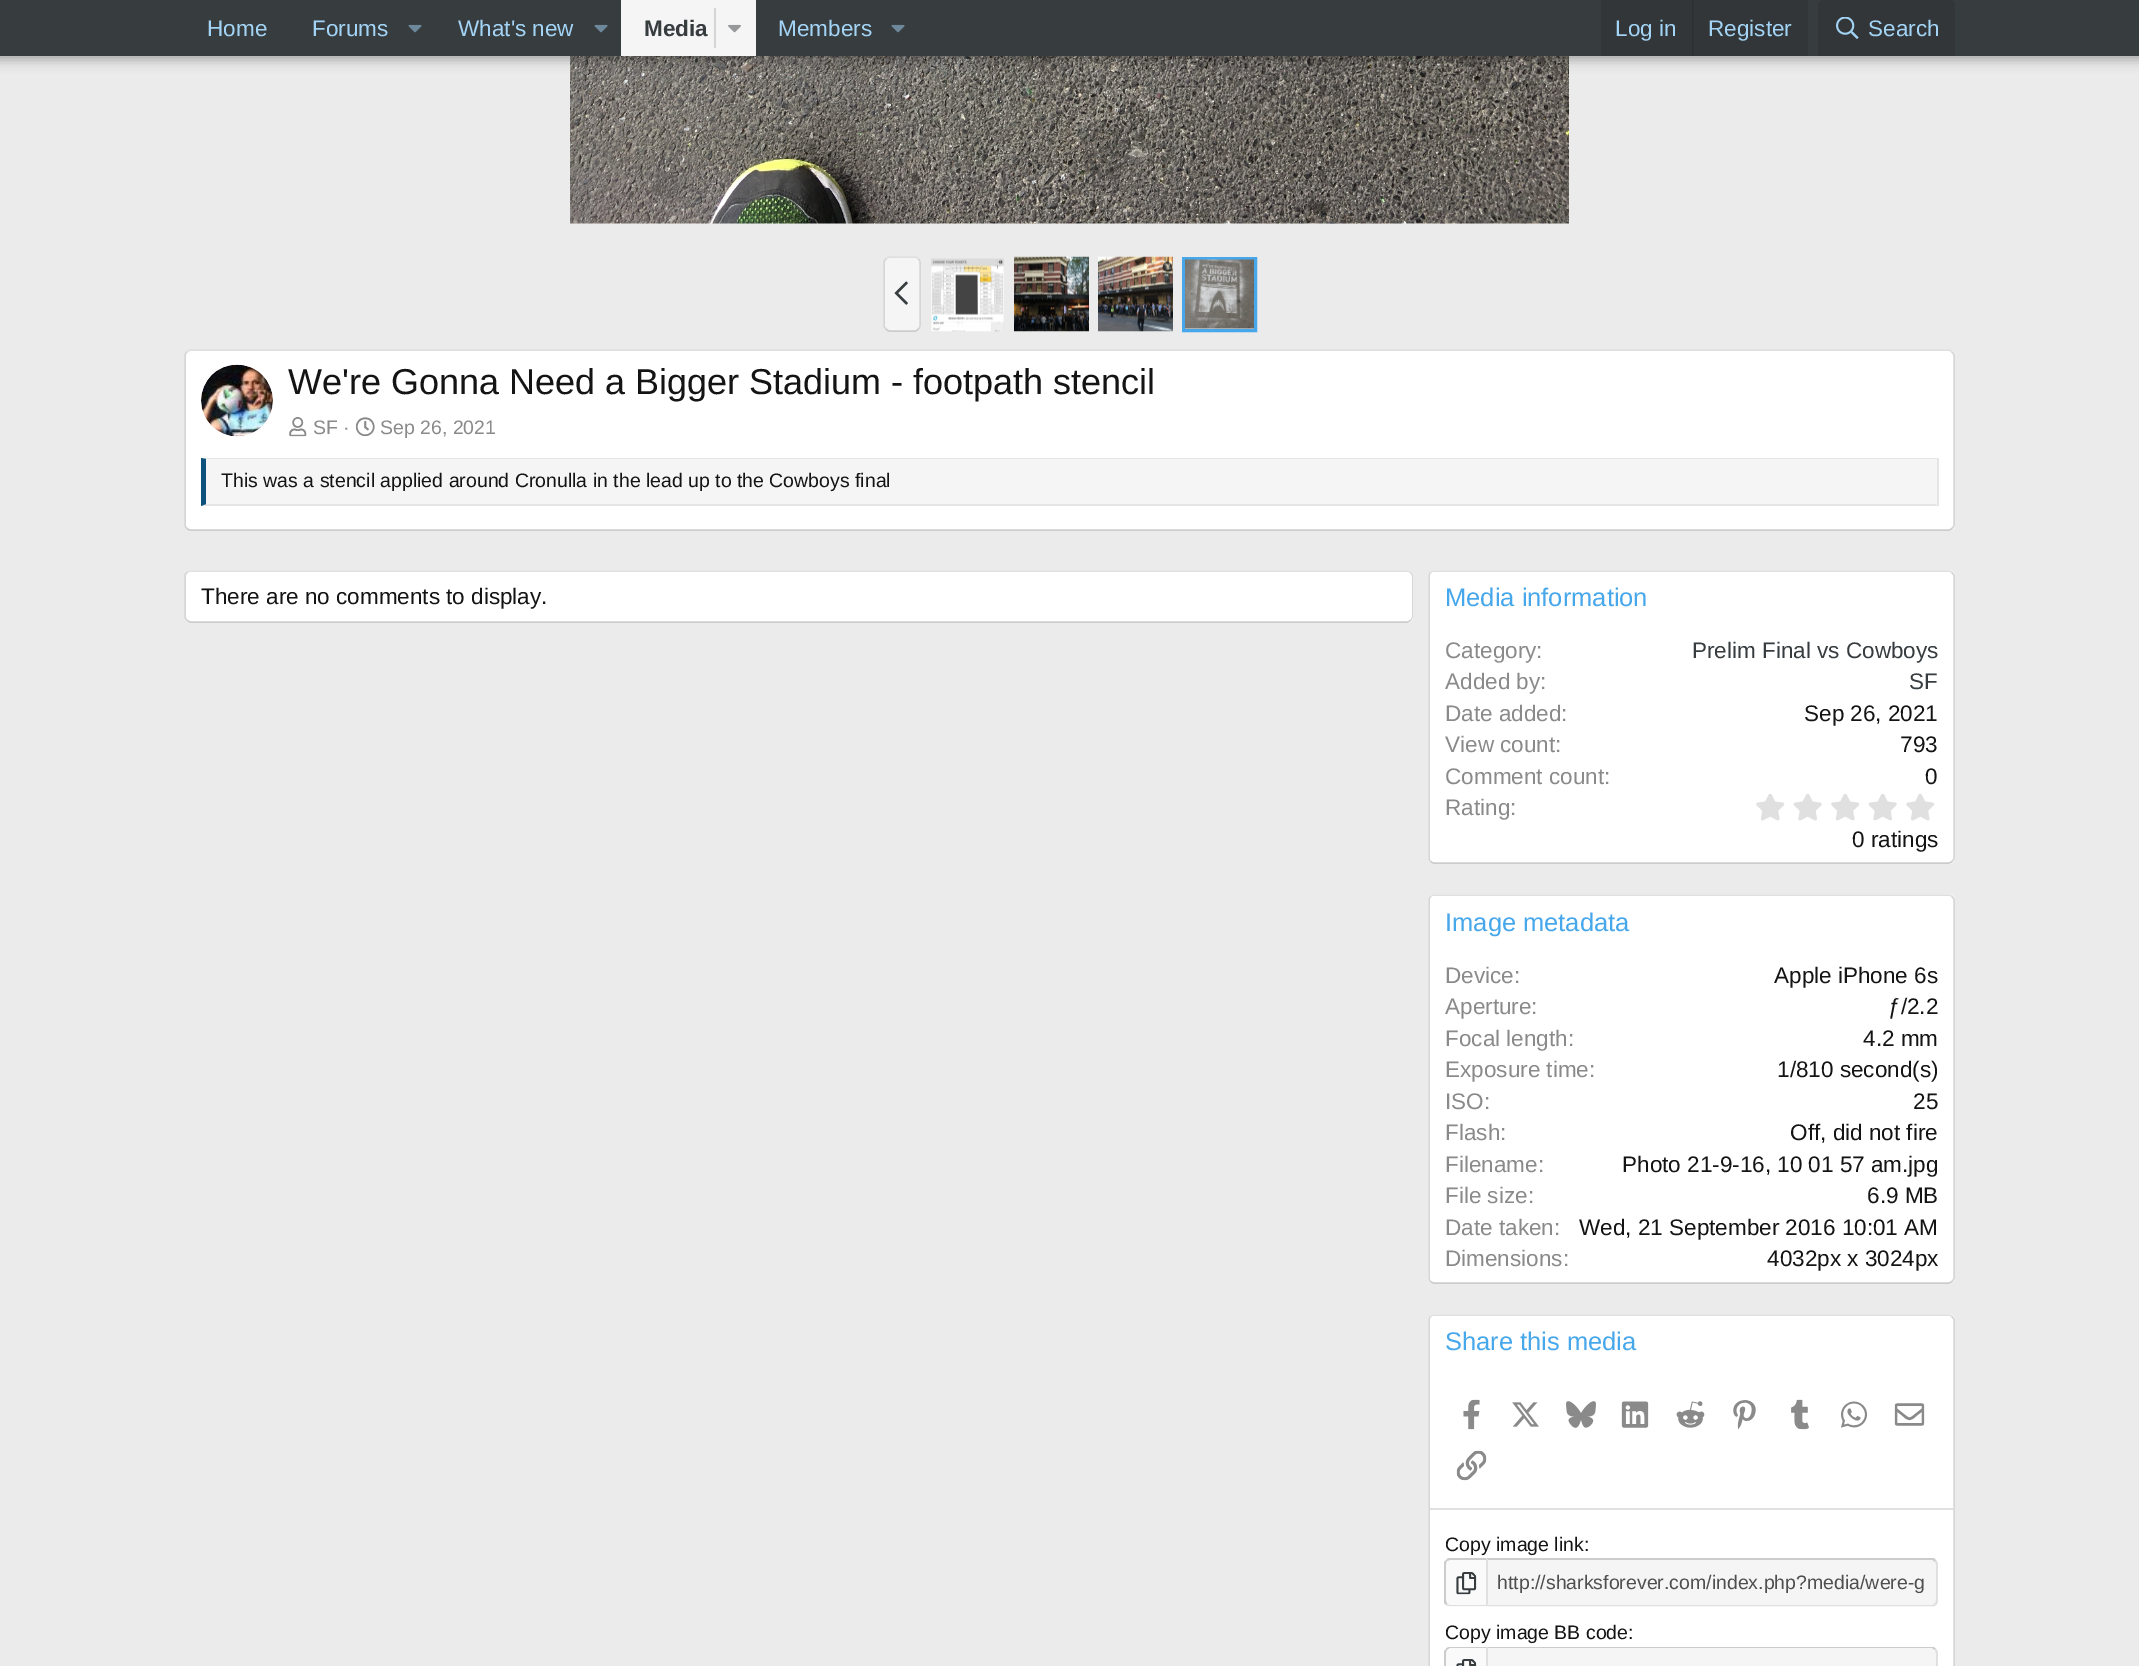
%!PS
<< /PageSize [2139 1666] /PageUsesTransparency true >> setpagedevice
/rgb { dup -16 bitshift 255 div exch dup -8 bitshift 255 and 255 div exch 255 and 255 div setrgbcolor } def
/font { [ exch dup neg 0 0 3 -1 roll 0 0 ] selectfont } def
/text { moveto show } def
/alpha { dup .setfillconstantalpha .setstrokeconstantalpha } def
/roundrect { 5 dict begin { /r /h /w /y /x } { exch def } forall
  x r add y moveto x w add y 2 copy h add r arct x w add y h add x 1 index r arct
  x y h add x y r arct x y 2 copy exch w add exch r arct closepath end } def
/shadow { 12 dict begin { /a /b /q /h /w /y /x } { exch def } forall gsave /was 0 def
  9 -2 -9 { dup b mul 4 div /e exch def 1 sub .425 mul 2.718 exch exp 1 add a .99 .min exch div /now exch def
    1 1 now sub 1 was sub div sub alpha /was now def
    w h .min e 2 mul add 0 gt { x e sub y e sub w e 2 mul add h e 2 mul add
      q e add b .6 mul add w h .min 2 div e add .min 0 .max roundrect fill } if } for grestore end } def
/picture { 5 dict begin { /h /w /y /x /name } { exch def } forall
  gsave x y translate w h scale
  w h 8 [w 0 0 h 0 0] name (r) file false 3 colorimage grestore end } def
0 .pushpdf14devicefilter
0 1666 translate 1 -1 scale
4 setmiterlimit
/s1 { /LiberationSans-Regular 22.5 font 16#A3D4F5 rgb } def
/s2 { /LiberationSans-Bold 22.5 font 16#373C3F rgb } def
/s3 { /LiberationSans-Regular 36 font 16#141414 rgb } def
/s4 { /LiberationSans-Regular 19.5 font 16#8A8A8A rgb } def
/s5 { /LiberationSans-Regular 19.5 font 16#141414 rgb } def
/s6 { /LiberationSans-Regular 22.5 font 16#141414 rgb } def
/s7 { /LiberationSans-Regular 25.5 font 16#47A7EB rgb } def
/s8 { /LiberationSans-Regular 22.5 font 16#8A8A8A rgb } def
/s9 { /LiberationSans-Regular 22.5 font 16#373C3F rgb } def
/s10 { /LiberationSans-Regular 19.5 font 16#4F4F4F rgb } def
16#EBEBEB rgb
0 0 2139 1666 rectfill
(pic4.raw) 570 56 999 168 picture
16#000000 rgb
-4 -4 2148 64 0 6 0.3 shadow
16#373C3F rgb
0 0 2139 56 rectfill
s1
(Home) 207 36 text
(Forums) 312 36 text
(pic1.raw) 408 24 14 9 picture
(What's new) 458 36 text
(pic1.raw) 594 24 14 9 picture
16#F5F5F5 rgb
621 0 135 56 rectfill
s2
(Media) 644 36 text
16#D4D5D5 rgb
714 8 2 40 rectfill
(pic2.raw) 728 24 13 9 picture
s1
(Members) 778 36 text
(pic1.raw) 891 24 14 9 picture
16#323639 rgb
1601 0 207 56 rectfill
s1
(Log in) 1615 36 text
16#2E3133 rgb
1692 0 2 56 rectfill
s1
(Register) 1708 36 text
16#323639 rgb
1824 0 moveto 1949 0 lineto 1952.5 0 1955 2.5 1955 6 curveto 1955 56 lineto 1818 56 lineto 1818 6 lineto 1818 2.5 1820.5 0 1824 0 curveto closepath fill
(pic3.raw) 1836 17 23 22 picture
s1
(Search) 1868 36 text
16#F5F5F5 rgb
884 257 37 75 6 roundrect fill
16#E0E0E0 rgb
1.5 setlinewidth
886 259 moveto 887 258 888 257 889.5 257 curveto 915 257 lineto 916.5 257 917.5 258 918.5 259 curveto stroke
16#D6D6D6 rgb
918.5 259 moveto 919.5 260 920 261 920 262.5 curveto 920 325.5 lineto 920 327 919.5 328 918.5 329 curveto stroke
16#CCCCCC rgb
918.5 329 moveto 917.5 330 916.5 331 915 331 curveto 889.5 331 lineto 888 331 887 330 886 329 curveto stroke
16#D6D6D6 rgb
886 329 moveto 885 328 884 327 884 325.5 curveto 884 262.5 lineto 884 261 885 260 886 259 curveto stroke
(pic5.raw) 894 281 14 24 picture
(pic6.raw) 931 258 73 74 picture
(pic7.raw) 1014 256 75 76 picture
(pic8.raw) 1098 256 75 76 picture
16#47A7EB rgb
3 setlinewidth
1183.5 258.5 72 72 rectstroke
(pic9.raw) 1185 259 69 70 picture
16#FFFFFF rgb
185 350 1770 181 6 roundrect fill
16#E0E0E0 rgb
1.5 setlinewidth
187 352 moveto 188 351 189 350 190.5 350 curveto 1948.5 350 lineto 1950 350 1951 351 1952 352 curveto stroke
16#D6D6D6 rgb
1952 352 moveto 1953 353 1954 354 1954 355.5 curveto 1954 525 lineto 1954 526.5 1953 527.5 1952 528.5 curveto stroke
16#CCCCCC rgb
1952 528.5 moveto 1951 529.5 1950 530 1948.5 530 curveto 190.5 530 lineto 189 530 188 529.5 187 528.5 curveto stroke
16#D6D6D6 rgb
187 528.5 moveto 186 527.5 185 526.5 185 525 curveto 185 355.5 lineto 185 354 186 353 187 352 curveto stroke
(pic10.raw) 201 364 72 73 picture
s3
(We're Gonna Need a Bigger Stadium - footpath stencil) 288 394 text
(pic11.raw) 289 417 18 20 picture
s4
(SF ·) 313 434 text
(pic12.raw) 355 417 20 20 picture
(Sep 26, 2021) 380 434 text
16#F5F5F5 rgb
206 459 1731 45 rectfill
16#E5E5E5 rgb
201 458 moveto 1938 458 lineto 1936 459 lineto 206 459 lineto closepath fill
1937 458 2 48 rectfill
1938 506 moveto 201 506 lineto 206 504 lineto 1936 504 lineto closepath fill
16#0D527C rgb
201 506 moveto 201 458 lineto 206 459 lineto 206 504 lineto closepath fill
s5
(This was a stencil applied around Cronulla in the lead up to the Cowboys final) 221 487 text
16#FFFFFF rgb
185 570 1228 53 6 roundrect fill
16#E0E0E0 rgb
187 572.5 moveto 188 571.5 189 571 190.5 571 curveto 1407 571 lineto 1408.5 571 1409.5 571.5 1410.5 572.5 curveto stroke
16#D6D6D6 rgb
1410.5 572.5 moveto 1411.5 573.5 1412 574.5 1412 576 curveto 1412 616.5 lineto 1412 618 1411.5 619 1410.5 620 curveto stroke
16#CCCCCC rgb
1410.5 620 moveto 1409.5 621 1408.5 622 1407 622 curveto 190.5 622 lineto 189 622 188 621 187 620 curveto stroke
16#D6D6D6 rgb
187 620 moveto 186 619 185 618 185 616.5 curveto 185 576 lineto 185 574.5 186 573.5 187 572.5 curveto stroke
16#FFFFFF rgb
186 572 1226 49 6 roundrect fill
s6
(There are no comments to display.) 201 604 text
16#FFFFFF rgb
1428 570 527 294 6 roundrect fill
16#E0E0E0 rgb
1430.5 572.5 moveto 1431.5 571.5 1432.5 571 1434 571 curveto 1948.5 571 lineto 1950 571 1951 571.5 1952 572.5 curveto stroke
16#D6D6D6 rgb
1952 572.5 moveto 1953 573.5 1954 574.5 1954 576 curveto 1954 858 lineto 1954 859.5 1953 860.5 1952 861.5 curveto stroke
16#CCCCCC rgb
1952 861.5 moveto 1951 862.5 1950 863 1948.5 863 curveto 1434 863 lineto 1432.5 863 1431.5 862.5 1430.5 861.5 curveto stroke
16#D6D6D6 rgb
1430.5 861.5 moveto 1429.5 860.5 1429 859.5 1429 858 curveto 1429 576 lineto 1429 574.5 1429.5 573.5 1430.5 572.5 curveto stroke
s7
(Media information) 1445 606 text
s8
(Category:) 1445 658 text
s9
(Prelim Final vs Cowboys) 1692 658 text
s8
(Added by:) 1445 689 text
s9
(SF) 1909 689 text
s8
(Date added:) 1445 721 text
s6
(Sep 26, 2021) 1804 721 text
s8
(View count:) 1445 752 text
s6
(793) 1900 752 text
s8
(Comment count:) 1445 784 text
s6
(0) 1925 784 text
s8
(Rating:) 1445 815 text
(pic13.raw) 1756 794 29 27 picture
(pic14.raw) 1793 794 29 27 picture
(pic13.raw) 1831 794 29 27 picture
(pic14.raw) 1868 794 29 27 picture
(pic13.raw) 1906 794 29 27 picture
s6
(0 ratings) 1852 847 text
16#FFFFFF rgb
1428 894 527 390 6 roundrect fill
16#E0E0E0 rgb
1430.5 896.5 moveto 1431.5 895.5 1432.5 895 1434 895 curveto 1948.5 895 lineto 1950 895 1951 895.5 1952 896.5 curveto stroke
16#D6D6D6 rgb
1952 896.5 moveto 1953 897.5 1954 898.5 1954 900 curveto 1954 1278 lineto 1954 1279.5 1953 1280.5 1952 1281.5 curveto stroke
16#CCCCCC rgb
1952 1281.5 moveto 1951 1282.5 1950 1283 1948.5 1283 curveto 1434 1283 lineto 1432.5 1283 1431.5 1282.5 1430.5 1281.5 curveto stroke
16#D6D6D6 rgb
1430.5 1281.5 moveto 1429.5 1280.5 1429 1279.5 1429 1278 curveto 1429 900 lineto 1429 898.5 1429.5 897.5 1430.5 896.5 curveto stroke
s7
(Image metadata) 1445 931 text
s8
(Device:) 1445 983 text
s6
(Apple iPhone 6s) 1774 983 text
s8
(Aperture:) 1445 1014 text
s6
(ƒ/2.2) 1888 1014 text
s8
(Focal length:) 1445 1046 text
s6
(4.2 mm) 1863 1046 text
s8
(Exposure time:) 1445 1077 text
s6
(1/810 second\(s\)) 1777 1077 text
s8
(ISO:) 1445 1109 text
s6
(25) 1913 1109 text
s8
(Flash:) 1445 1140 text
s6
(Off, did not fire) 1790 1140 text
s8
(Filename:) 1445 1172 text
s6
(Photo 21-9-16, 10 01 57 am.jpg) 1622 1172 text
s8
(File size:) 1445 1203 text
s6
(6.9 MB) 1867 1203 text
s8
(Date taken:) 1445 1235 text
s6
(Wed, 21 September 2016 10:01 AM) 1579 1235 text
s8
(Dimensions:) 1445 1266 text
s6
(4032px x 3024px) 1767 1266 text
16#FFFFFF rgb
1428 1314 527 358 6 roundrect fill
16#E0E0E0 rgb
1430.5 1316.5 moveto 1431.5 1315.5 1432.5 1315 1434 1315 curveto 1948.5 1315 lineto 1950 1315 1951 1315.5 1952 1316.5 curveto stroke
16#D6D6D6 rgb
1952 1316.5 moveto 1953 1317.5 1954 1318.5 1954 1320 curveto 1954 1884 lineto 1954 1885.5 1953 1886.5 1952 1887.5 curveto stroke
1430.5 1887.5 moveto 1429.5 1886.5 1429 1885.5 1429 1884 curveto 1429 1320 lineto 1429 1318.5 1429.5 1317.5 1430.5 1316.5 curveto stroke
s7
(Share this media) 1445 1350 text
(pic15.raw) 1463 1399 17 31 picture
(pic16.raw) 1512 1402 27 25 picture
(pic17.raw) 1566 1401 30 27 picture
(pic18.raw) 1621 1401 28 27 picture
(pic19.raw) 1676 1401 29 27 picture
(pic20.raw) 1733 1400 23 29 picture
(pic21.raw) 1791 1399 18 31 picture
(pic22.raw) 1841 1401 27 27 picture
(pic23.raw) 1894 1403 31 23 picture
(pic24.raw) 1456 1450 31 31 picture
16#E0E0E0 rgb
1430 1508 523 2 rectfill
s5
(Copy image link:) 1445 1551 text
16#FAFAFA rgb
1451 1559 moveto 1487 1559 lineto 1487 1607 lineto 1451 1607 lineto 1447.5 1607 1445 1604.5 1445 1601 curveto 1445 1565 lineto 1445 1561.5 1447.5 1559 1451 1559 curveto closepath fill
16#CCCCCC rgb
1450 1560 moveto 1447 1561 lineto 1446 1560 lineto 1448 1558 lineto 1486 1558 lineto 1486 1560 lineto closepath fill
16#E0E0E0 rgb
1447.5 1603.5 moveto 1446 1605 lineto 1447.5 1605.5 1448.5 1606 1450 1606 curveto 1486 1606 lineto 1486 1605 lineto 1450 1605 lineto 1449 1605 1448 1604.5 1447.5 1603.5 curveto closepath fill
16#CCCCCC rgb
1444 1562 moveto 1446 1560 lineto 1447 1561 lineto 1446 1562 1446 1563 1446 1564 curveto 1446 1600 lineto 1446 1602 1447 1603 1447 1604 curveto 1446 1605 lineto 1444 1603 lineto closepath fill
(pic25.raw) 1456 1572 21 23 picture
16#F5F5F5 rgb
1487 1559 moveto 1932 1559 lineto 1935.5 1559 1938 1561.5 1938 1565 curveto 1938 1601 lineto 1938 1604.5 1935.5 1607 1932 1607 curveto 1487 1607 lineto closepath fill
16#CCCCCC rgb
1488 1560 moveto 1486 1558 lineto 1934 1558 lineto 1936 1560 lineto 1935 1562 lineto 1934 1561 1933 1560 1932 1560 curveto closepath fill
16#E0E0E0 rgb
1938 1600 moveto 1938 1564 lineto 1938 1563 1937 1561 1936 1560 curveto 1935 1562 lineto 1936 1564 lineto 1936 1600 lineto 1936 1601 1936 1603 1935 1603 curveto 1936 1605 lineto 1937 1604 1938 1602 1938 1600 curveto closepath fill
1936 1605 moveto 1935 1606 1933 1606 1932 1606 curveto 1487 1606 lineto 1488 1605 lineto 1932 1605 lineto 1933 1605 1934 1604 1935 1603 curveto closepath fill
1488 1560 moveto 1488 1605 lineto 1486 1606 lineto 1486 1558 lineto closepath fill
s10
(http://sharksforever.com/index.php?media/were-g) 1497 1589 text
s5
(Copy image BB code:) 1445 1639 text
16#FAFAFA rgb
1451 1647 moveto 1487 1647 lineto 1487 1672 lineto 1451 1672 lineto 1447.5 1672 1445 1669.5 1445 1666 curveto 1445 1653 lineto 1445 1649.5 1447.5 1647 1451 1647 curveto closepath fill
16#CCCCCC rgb
1450 1647 moveto 1448.5 1647 1447 1647.5 1446 1648.5 curveto 1447 1650 lineto 1449.5 1648 lineto 1486 1648 lineto 1486 1647 lineto closepath fill
1444 1651 moveto 1446 1649 lineto 1447 1650 lineto 1446 1651 1446 1652 1446 1653 curveto 1446 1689 lineto 1446 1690 1446 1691 1447 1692 curveto 1446 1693 lineto 1444 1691 lineto closepath fill
(pic26.raw) 1456 1659 21 7 picture
16#F5F5F5 rgb
1487 1647 moveto 1932 1647 lineto 1935.5 1647 1938 1649.5 1938 1653 curveto 1938 1666 lineto 1938 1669.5 1935.5 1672 1932 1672 curveto 1487 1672 lineto closepath fill
16#CCCCCC rgb
1488 1648 moveto 1932 1648 lineto 1935 1650 lineto 1936 1649 lineto 1934 1647 lineto 1486 1647 lineto closepath fill
16#E0E0E0 rgb
1938 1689 moveto 1938 1653 lineto 1938 1652 1937 1650 1936 1649 curveto 1935 1650 lineto 1936 1653 lineto 1936 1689 lineto 1935 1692 lineto 1936 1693 lineto 1937 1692 1938 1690 1938 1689 curveto closepath fill
1486 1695 moveto 1488 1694 lineto 1488 1648 lineto 1486 1647 lineto closepath fill
.poppdf14devicefilter showpage
